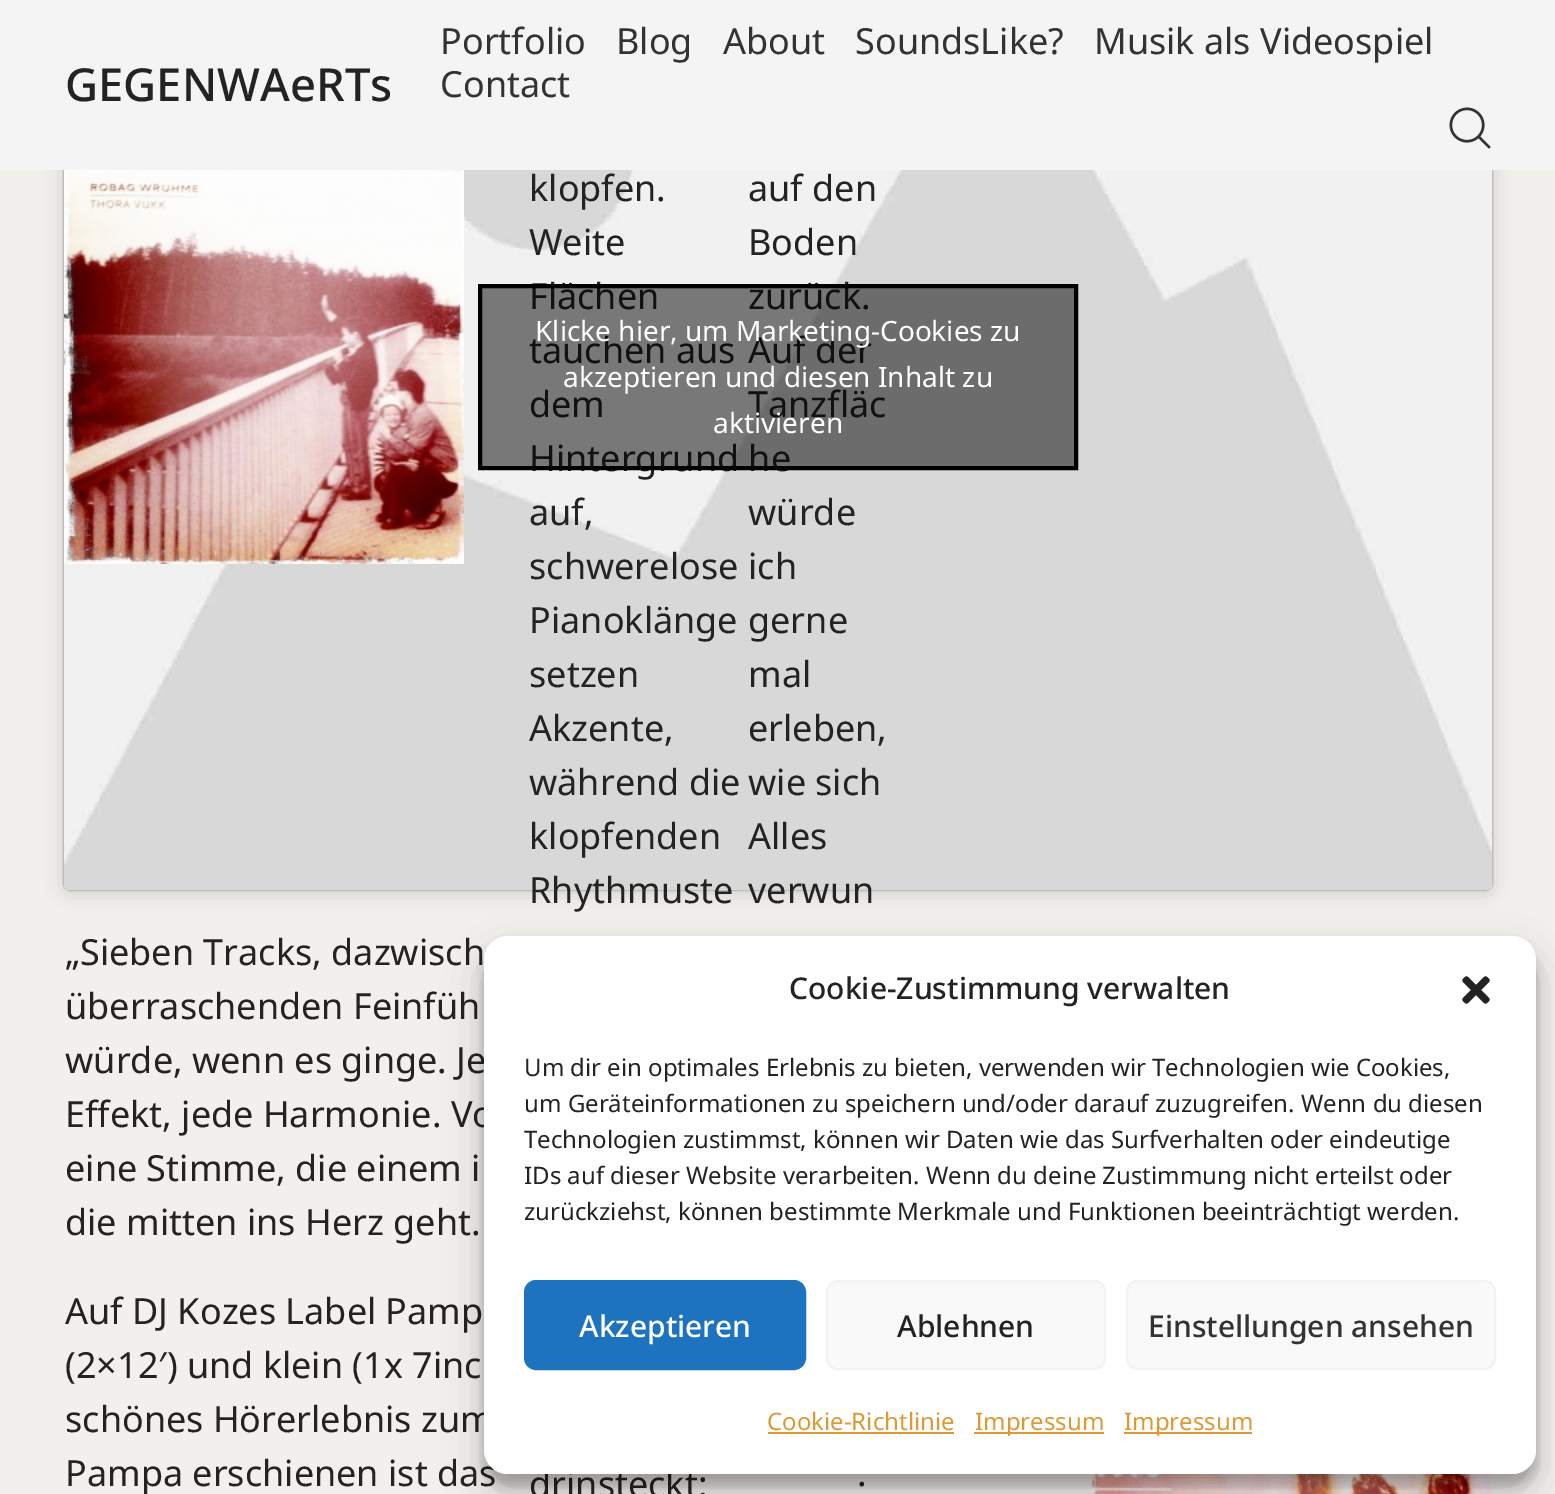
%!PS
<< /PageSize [1555 1494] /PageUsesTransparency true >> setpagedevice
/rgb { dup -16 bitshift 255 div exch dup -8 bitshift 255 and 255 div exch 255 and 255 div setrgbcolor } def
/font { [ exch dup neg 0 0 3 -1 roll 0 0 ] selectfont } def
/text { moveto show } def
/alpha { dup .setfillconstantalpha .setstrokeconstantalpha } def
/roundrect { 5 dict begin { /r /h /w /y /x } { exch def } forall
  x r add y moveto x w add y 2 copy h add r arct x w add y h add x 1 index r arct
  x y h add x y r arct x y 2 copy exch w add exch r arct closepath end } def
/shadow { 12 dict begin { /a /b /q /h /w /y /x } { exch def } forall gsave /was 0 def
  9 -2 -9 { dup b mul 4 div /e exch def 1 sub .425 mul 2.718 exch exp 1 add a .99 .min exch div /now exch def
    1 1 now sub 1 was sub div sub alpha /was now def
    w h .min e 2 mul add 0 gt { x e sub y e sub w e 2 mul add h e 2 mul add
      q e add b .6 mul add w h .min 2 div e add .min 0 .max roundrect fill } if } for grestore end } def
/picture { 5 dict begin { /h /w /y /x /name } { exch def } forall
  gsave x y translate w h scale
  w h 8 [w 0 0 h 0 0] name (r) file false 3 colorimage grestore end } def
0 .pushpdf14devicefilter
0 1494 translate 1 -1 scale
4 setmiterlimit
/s1 { /NotoSans-Medium 45.5 font 16#242321 rgb } def
/s2 { /NotoSans-Regular 36 font 16#333333 rgb } def
/s3 { /NotoSans-Regular 36 font 16#242321 rgb } def
/s4 { /NotoSans-Regular 28 font 16#FFFFFF rgb } def
/s5 { /NotoSans-Medium 30 font 16#242321 rgb } def
/s6 { /NotoSans-Regular 24 font 16#242321 rgb } def
/s7 { /NotoSans-Medium 30 font 16#FFFFFF rgb } def
/s8 { /NotoSans-Medium 30 font 16#333333 rgb } def
/s9 { /NotoSans-Regular 24 font 16#DD9933 rgb } def
16#F2F0EC rgb
0 0 1555 1494 rectfill
16#000000 rgb
64 -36 1428 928 6 10 0.15 shadow
64 -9 1428 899 6 1 0.5 shadow
16#F4F4F4 rgb
0 0 1555 170 rectfill
s1
(GEGENWAeRTs) 65 101 text
s2
(Portfolio) 440 54 text
(Blog) 616 54 text
(About) 723 54 text
(SoundsLike?) 855 54 text
(Musik als Videospiel) 1094 54 text
(Contact) 440 97 text
(pic1.raw) 1449 107 42 42 picture
s3
(„Sieben Tracks, dazwisch) 65 965 text
(überraschenden Feinfüh) 65 1019 text
(würde, wenn es ginge. Je) 65 1073 text
(Effekt, jede Harmonie. Vo) 65 1127 text
(eine Stimme, die einem i) 65 1181 text
(die mitten ins Herz geht.) 65 1235 text
(pic2.raw) 64 170 1428 720 picture
(pic3.raw) 64 170 400 394 picture
(klopfen.) 529 201 text
(auf den) 748 201 text
(Weite) 529 255 text
(Boden) 748 255 text
(Flächen) 529 309 text
(zurück.) 748 309 text
(tauchen aus) 529 363 text
(Auf der) 748 363 text
(dem) 529 417 text
(Tanzfläc) 748 417 text
(Hintergrund he) 529 471 text
0.5 alpha
16#000000 rgb
480 286 moveto 1076 286 lineto 1076 468 lineto 480 468 lineto closepath fill
1 alpha
4 setlinewidth
480 286 moveto 1076 286 lineto 1076 468 lineto 480 468 lineto closepath stroke
s4
(Klicke hier, um Marketing-Cookies zu) 535 341 text
(akzeptieren und diesen Inhalt zu) 563 387 text
(aktivieren) 713 433 text
s3
(auf,) 529 525 text
(würde) 748 525 text
(schwerelose) 529 579 text
(ich) 748 579 text
(Pianoklänge) 529 633 text
(gerne) 748 633 text
(setzen) 529 687 text
(mal) 748 687 text
(Akzente,) 529 741 text
(erleben,) 748 741 text
(während die) 529 795 text
(wie sich) 748 795 text
(klopfenden) 529 849 text
(Alles) 748 849 text
(Rhythmuste) 529 903 text
(verwun) 748 903 text
(drinsteckt:) 529 1497 text
(Auf DJ Kozes Label Pamp) 65 1324 text
(\(2×12′\) und klein \(1x 7inc) 65 1378 text
(schönes Hörerlebnis zum) 65 1432 text
(Pampa erschienen ist das) 65 1486 text
(.) 857 1486 text
(pic4.raw) 1092 1474 400 20 picture
16#000000 rgb
484 948 1052 538 24 6 0.23 shadow
484 956 1052 538 24 20 0.19 shadow
16#FFFFFF rgb
484 936 1052 538 24 roundrect fill
s5
(Cookie-Zustimmung verwalten) 789 999 text
(pic5.raw) 1462 976 28 28 picture
s6
(Um dir ein optimales Erlebnis zu bieten, verwenden wir Technologien wie Cookies,) 524 1076 text
(um Geräteinformationen zu speichern und/oder darauf zuzugreifen. Wenn du diesen) 524 1112 text
(Technologien zustimmst, können wir Daten wie das Surfverhalten oder eindeutige) 524 1148 text
(IDs auf dieser Website verarbeiten. Wenn du deine Zustimmung nicht erteilst oder) 524 1184 text
(zurückziehst, können bestimmte Merkmale und Funktionen beeinträchtigt werden.) 524 1220 text
16#1E73BE rgb
525 1281 280 88 11 roundrect gsave fill grestore
2 setlinewidth
stroke
s7
(Akzeptieren) 579 1337 text
16#F9F9F9 rgb
827 1281 278 88 11 roundrect gsave fill grestore
16#F2F2F2 rgb
stroke
s5
(Ablehnen) 897 1337 text
16#F9F9F9 rgb
1127 1281 368 88 11 roundrect gsave fill grestore
16#F2F2F2 rgb
stroke
s8
(Einstellungen ansehen) 1148 1337 text
s9
(Cookie-Richtlinie) 767 1430 text
768 1432 186 2 rectfill
974 1432 130 2 rectfill
(Impressum) 975 1430 text
1124 1432 128 2 rectfill
(Impressum) 1124 1430 text
.poppdf14devicefilter showpage
